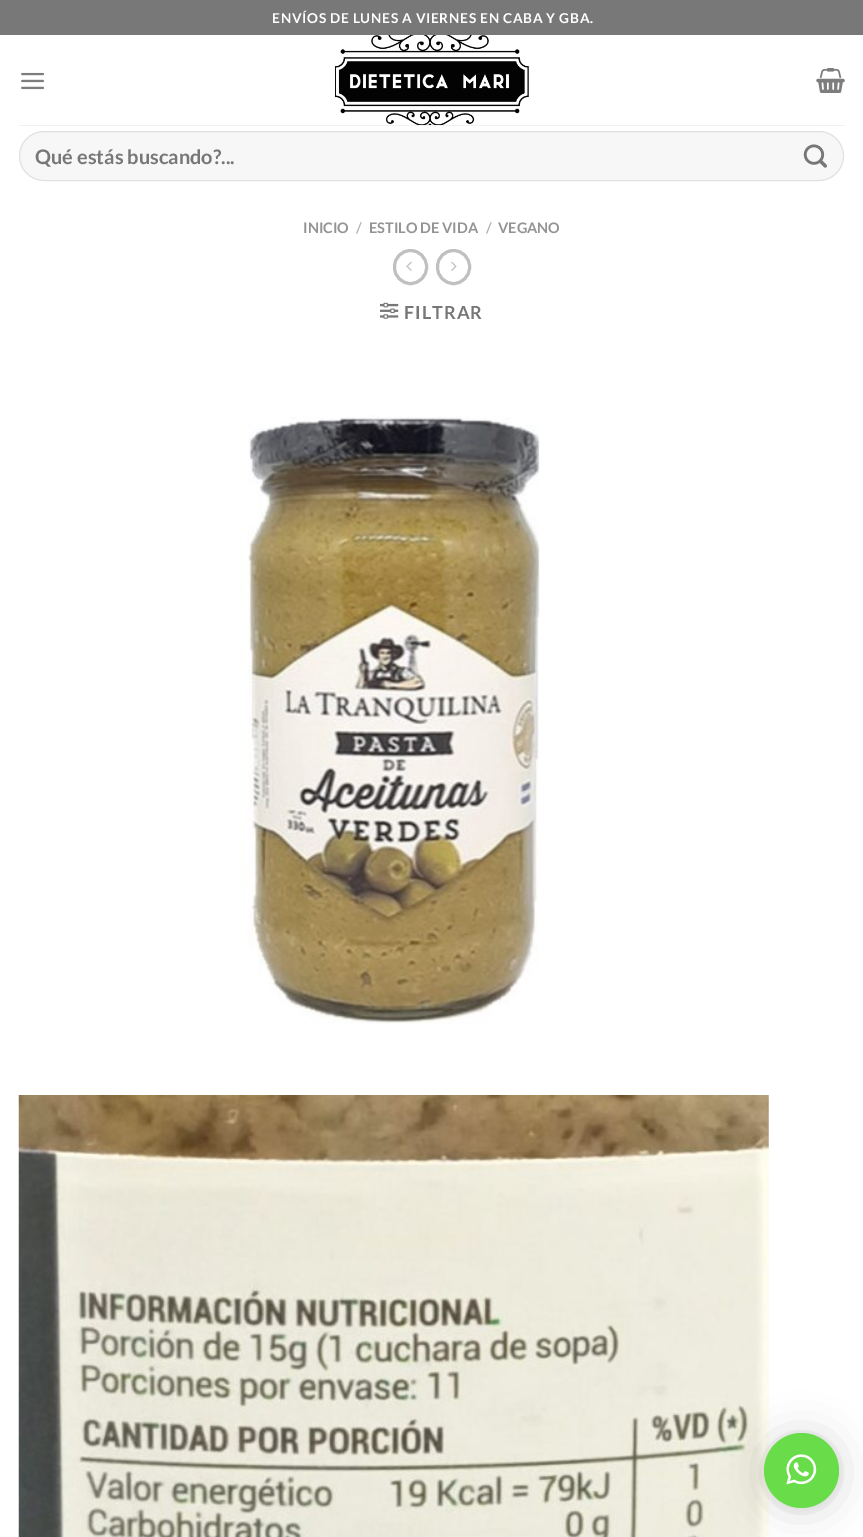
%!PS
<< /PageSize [863 1537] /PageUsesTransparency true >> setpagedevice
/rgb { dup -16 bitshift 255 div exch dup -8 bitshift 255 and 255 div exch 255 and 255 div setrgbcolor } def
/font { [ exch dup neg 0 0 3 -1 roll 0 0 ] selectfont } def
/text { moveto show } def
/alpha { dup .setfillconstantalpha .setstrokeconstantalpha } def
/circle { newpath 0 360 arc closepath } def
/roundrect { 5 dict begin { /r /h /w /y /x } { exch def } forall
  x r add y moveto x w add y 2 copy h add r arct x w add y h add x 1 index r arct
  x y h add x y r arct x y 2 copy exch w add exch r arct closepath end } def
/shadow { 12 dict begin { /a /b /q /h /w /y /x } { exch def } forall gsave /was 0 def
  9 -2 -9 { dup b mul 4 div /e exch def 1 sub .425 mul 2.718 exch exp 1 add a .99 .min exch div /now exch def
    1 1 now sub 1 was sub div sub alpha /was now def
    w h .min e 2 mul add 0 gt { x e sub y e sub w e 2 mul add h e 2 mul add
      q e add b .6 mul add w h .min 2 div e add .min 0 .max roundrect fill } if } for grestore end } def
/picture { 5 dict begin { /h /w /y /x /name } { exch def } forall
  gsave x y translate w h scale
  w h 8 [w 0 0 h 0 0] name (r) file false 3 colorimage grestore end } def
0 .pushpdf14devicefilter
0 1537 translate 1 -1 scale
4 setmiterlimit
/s1 { /Lato-Bold 20 font 16#777777 rgb } def
/s2 { /Lato-Bold 14.5 font 16#949494 rgb } def
/s3 { /Lato-Bold 14.5 font 16#B2B2B2 rgb } def
16#FFFFFF rgb
0 0 863 1537 rectfill
16#787878 rgb
0 0 863 35 rectfill
/Lato-Bold 13.65 font
16#FFFFFF rgb
272 23 moveto 0.7 0 (ENVÍOS DE LUNES A VIERNES EN CABA Y GBA.) ashow
(pic1.raw) 21 72 24 18 picture
(pic2.raw) 335 35 194 90 picture
(pic3.raw) 816 68 29 25 picture
16#F1F1F1 rgb
19 125 826 1 rectfill
16#F7F7F7 rgb
19 131 825 50 25 roundrect fill
0.09 alpha
16#000000 rgb
19.5 131.5 824 49 24.5 roundrect stroke
1 alpha
s1
(Qué estás buscando?...) 35 164 text
(pic4.raw) 803 144 24 24 picture
s2
(INICIO) 303 233 text
s3
(/) 356 233 text
s2
(ESTILO DE VIDA) 369 233 text
s3
(/) 486 233 text
s2
(VEGANO) 498 233 text
16#C0C0C0 rgb
3 setlinewidth
394.5 250.5 32 33 16 roundrect stroke
(pic5.raw) 406 261 6 10 picture
437.5 250.5 32 33 16 roundrect stroke
(pic6.raw) 451 261 6 10 picture
(pic7.raw) 380 302 19 17 picture
/Lato-Bold 18 font
16#777777 rgb
404 319 moveto 1 0 (FILTRAR) ashow
(pic8.raw) 239 415 301 609 picture
(pic9.raw) 18 1095 751 442 picture
16#000000 rgb
764 1435 75 75 37.5 20 0.16 shadow
764 1434 75 75 37.5 4 0.06 shadow
16#69DD49 rgb
801.5 1470.5 37.5 circle fill
(pic10.raw) 786 1454 31 31 picture
.poppdf14devicefilter showpage
